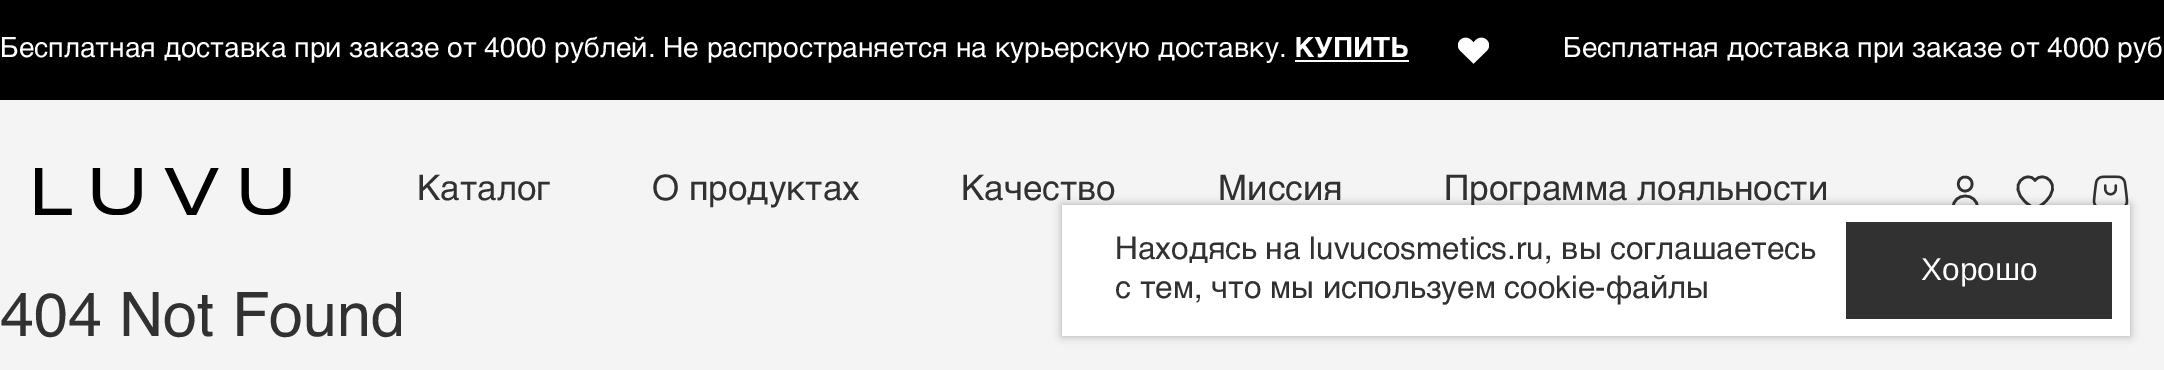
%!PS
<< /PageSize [2164 370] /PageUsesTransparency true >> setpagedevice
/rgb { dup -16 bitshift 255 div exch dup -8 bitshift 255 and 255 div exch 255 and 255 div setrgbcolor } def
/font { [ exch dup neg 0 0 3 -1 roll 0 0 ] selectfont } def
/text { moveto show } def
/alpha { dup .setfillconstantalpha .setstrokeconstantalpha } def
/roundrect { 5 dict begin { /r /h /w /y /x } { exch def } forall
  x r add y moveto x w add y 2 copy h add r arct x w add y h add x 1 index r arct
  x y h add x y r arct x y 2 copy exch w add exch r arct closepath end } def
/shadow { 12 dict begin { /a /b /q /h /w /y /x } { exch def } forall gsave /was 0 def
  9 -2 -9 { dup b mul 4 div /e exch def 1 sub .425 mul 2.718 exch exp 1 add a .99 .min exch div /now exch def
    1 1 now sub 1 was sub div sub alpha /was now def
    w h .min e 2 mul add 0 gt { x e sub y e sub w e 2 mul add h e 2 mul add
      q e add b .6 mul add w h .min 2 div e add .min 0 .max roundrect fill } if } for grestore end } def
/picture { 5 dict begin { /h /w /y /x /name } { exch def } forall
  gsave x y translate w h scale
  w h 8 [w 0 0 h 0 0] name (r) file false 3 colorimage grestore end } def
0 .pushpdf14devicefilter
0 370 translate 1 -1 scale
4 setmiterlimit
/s1 { /Helvetica-Regular 28 font 16#FFFFFF rgb } def
/s2 { /Helvetica-Bold 28 font 16#FFFFFF rgb } def
/s3 { /Helvetica-Regular 35 font 16#313131 rgb } def
/s4 { /Helvetica-Regular 31.5 font 16#313131 rgb } def
/s5 { /LiberationSans-Regular 31.5 font 16#FFFFFF rgb } def
/s6 { /Helvetica-Regular 61.25 font 16#313131 rgb } def
16#F4F4F4 rgb
0 0 2164 370 rectfill
16#000000 rgb
0 0 2164 100 rectfill
s1
(Бесплатная доставка при заказе от 4000 рублей. Не распространяется на курьерскую доставку.) 0 57 text
s2
(КУПИТЬ) 1294 57 text
1295 60 114 2 rectfill
(pic1.raw) 1458 37 31 27 picture
s1
(Бесплатная доставка при заказе от 4000 руб) 1563 57 text
(pic2.raw) 35 168 256 47 picture
s3
(Каталог) 417 200 text
(О продуктах) 652 200 text
(Качество) 961 200 text
(Миссия) 1218 200 text
(Программа лояльности) 1444 200 text
2.6 setlinewidth
1 setlinecap
1 setlinejoin
1977.5 208 moveto 1977.5 192 1953 192 1953 208 curveto 1965 191 moveto 1956 191 1956 177 1965 177 curveto 1974.5 177 1974.5 191 1965 191 curveto closepath stroke
2035 208 moveto 2037.5 208 2043 204 2044.5 202.5 curveto 2064.5 184.5 2042.5 169.5 2035 180.5 curveto 2028 169.5 2006 184.5 2026 202.5 curveto 2027.5 204 2033 208 2035 208 curveto closepath stroke
(pic3.raw) 2092 175 37 30 picture
16#000000 rgb
1062 205 1068 131 0 4.5 0.3 shadow
16#FFFFFF rgb
1062 205 1068 131 rectfill
s4
(Находясь на luvucosmetics.ru, вы соглашаетесь) 1115 259 text
(с тем, что мы используем cookie-файлы) 1115 298 text
1846 222 266 97 rectfill
s5
(Хорошо) 1921 280 text
s6
(404 Not Found) 0 336 text
.poppdf14devicefilter showpage
